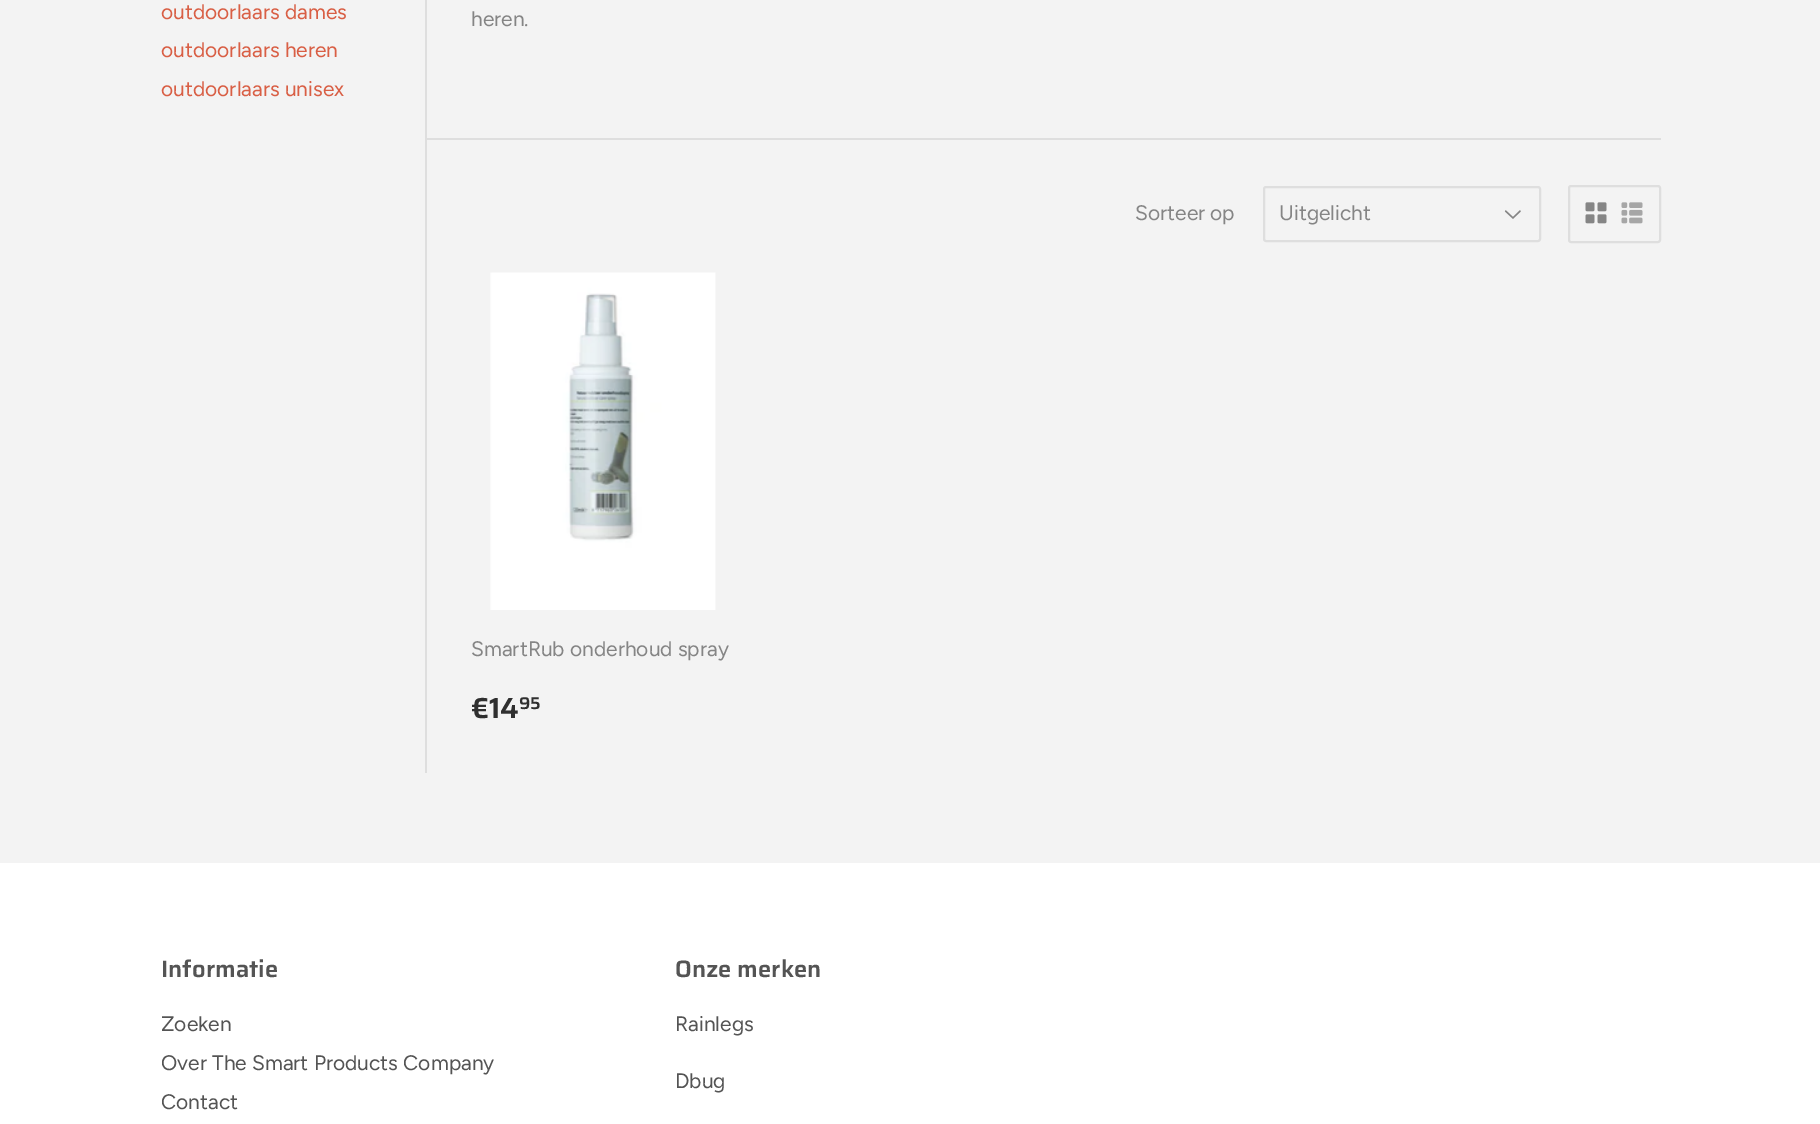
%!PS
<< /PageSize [1820 1124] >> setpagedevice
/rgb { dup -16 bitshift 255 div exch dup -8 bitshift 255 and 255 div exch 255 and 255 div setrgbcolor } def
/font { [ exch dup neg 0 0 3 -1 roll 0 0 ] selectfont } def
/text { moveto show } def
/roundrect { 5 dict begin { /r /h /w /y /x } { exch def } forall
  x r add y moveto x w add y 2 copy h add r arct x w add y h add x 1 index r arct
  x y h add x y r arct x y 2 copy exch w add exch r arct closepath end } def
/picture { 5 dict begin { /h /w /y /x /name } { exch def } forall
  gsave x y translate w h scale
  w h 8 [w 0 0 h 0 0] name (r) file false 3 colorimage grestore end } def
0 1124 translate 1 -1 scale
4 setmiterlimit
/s1 { /Figtree-Regular 21 font 16#D95F45 rgb } def
/s2 { /Figtree-Regular 21 font 16#858585 rgb } def
/s3 { /Saira-SemiBold 29 font 16#2F2F2F rgb } def
/s4 { /Saira-SemiBold 17 font 16#2F2F2F rgb } def
/s5 { /Saira-SemiBold 23.75 font 16#545454 rgb } def
/s6 { /Figtree-Regular 21 font 16#545454 rgb } def
16#F3F3F3 rgb
0 0 1820 1124 rectfill
s1
(outdoorlaars dames) 161 19 text
(outdoorlaars heren) 161 57 text
(outdoorlaars unisex) 161 96 text
16#DEDEDE rgb
425 0 2 773 rectfill
s2
(heren.) 471 26 text
16#DEDEDE rgb
426 138 1235 2 rectfill
s2
(Sorteer op) 1135 220 text
(pic1.raw) 1504 210 17 9 picture
16#DEDEDE rgb
2 setlinewidth
1264 187 276 54 2 roundrect stroke
s2
(Uitgelicht) 1279 220 text
16#DEDEDE rgb
1569 186 91 56 2 roundrect stroke
(pic2.raw) 1585 202 22 22 picture
(pic3.raw) 1621 202 22 22 picture
(pic4.raw) 490 272 226 338 picture
s2
(SmartRub onderhoud spray) 471 656 text
s3
(€14) 471 718 text
s4
(95) 519 709 text
16#FFFFFF rgb
0 863 1820 261 rectfill
s5
(Informatie) 161 977 text
s6
(Zoeken) 161 1031 text
(Over The Smart Products Company) 161 1070 text
(Contact) 161 1109 text
s5
(Onze merken) 675 977 text
s6
(Rainlegs) 675 1031 text
(Dbug) 675 1088 text
showpage
